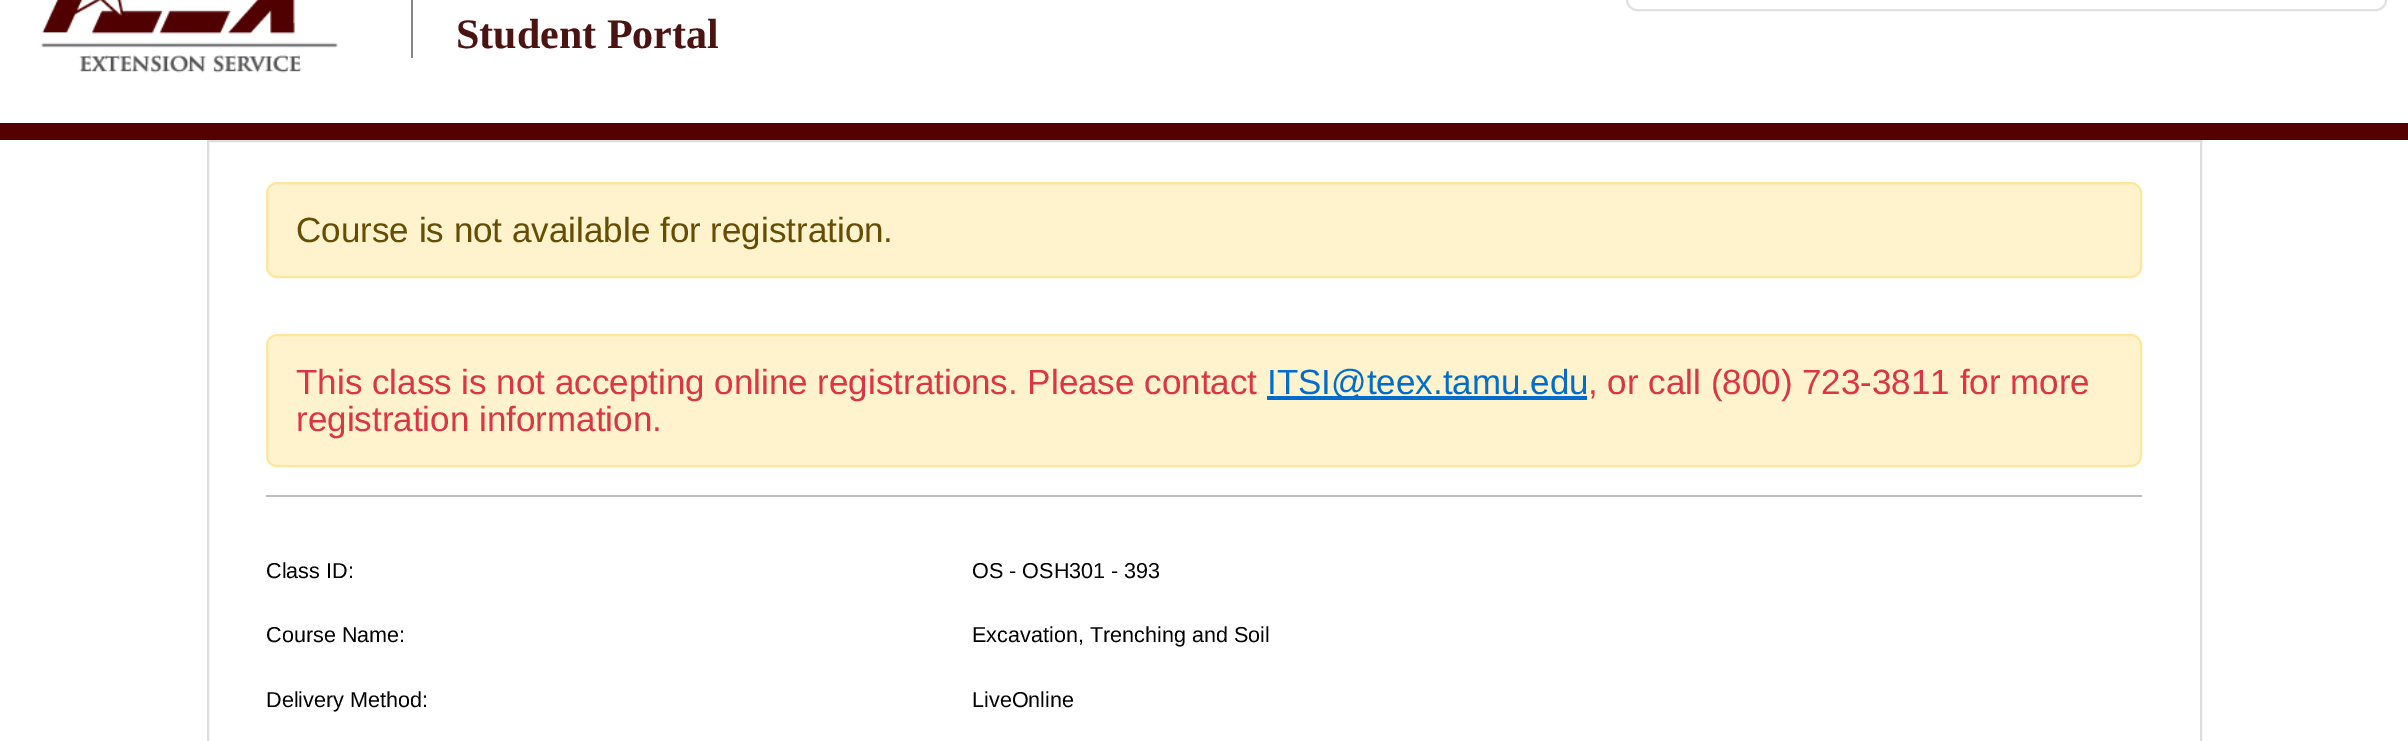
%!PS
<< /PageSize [2408 741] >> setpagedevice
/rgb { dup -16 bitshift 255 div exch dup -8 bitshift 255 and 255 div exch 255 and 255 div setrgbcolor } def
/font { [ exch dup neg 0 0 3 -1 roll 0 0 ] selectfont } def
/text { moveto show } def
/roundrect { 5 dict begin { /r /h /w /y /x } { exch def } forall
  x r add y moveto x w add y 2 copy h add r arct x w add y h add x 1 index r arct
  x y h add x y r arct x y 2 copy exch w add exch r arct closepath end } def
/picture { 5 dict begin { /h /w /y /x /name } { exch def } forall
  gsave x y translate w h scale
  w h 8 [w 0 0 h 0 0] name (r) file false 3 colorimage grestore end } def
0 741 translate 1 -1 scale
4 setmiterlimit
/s1 { /LiberationSerif-Bold 42 font 16#4B1311 rgb } def
/s2 { /LiberationSans-Regular 35 font 16#664D03 rgb } def
/s3 { /LiberationSans-Regular 35 font 16#DC3545 rgb } def
/s4 { /LiberationSans-Regular 35 font 16#006DCD rgb } def
/s5 { /LiberationSans-Regular 21.6 font 16#000000 rgb } def
16#FFFFFF rgb
0 0 2408 741 rectfill
16#550000 rgb
0 123 2408 17 rectfill
16#DEE2E6 rgb
2 setlinewidth
1627 -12 759 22 10 roundrect stroke
(pic1.raw) 41 0 297 73 picture
16#888888 rgb
411 0 2 58 rectfill
s1
(Student Portal) 456 48 text
16#DDDDDD rgb
208 141 1993 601 rectstroke
16#FFF3CD rgb
267 183 1874 94 10 roundrect gsave fill grestore
16#FFE69C rgb
stroke
s2
(Course is not available for registration.) 296 242 text
16#FFF3CD rgb
267 335 1874 131 10 roundrect gsave fill grestore
16#FFE69C rgb
stroke
s3
(This class is not accepting online registrations. Please contact) 296 394 text
16#006DCD rgb
1267 396 320 4 rectfill
(ITSI@teex.tamu.edu) 1267 394 text
s3
(, or call \(800\) 723-3811 for more) 1588 394 text
(registration information.) 296 431 text
16#BFBFBF rgb
266 495 1876 2 rectfill
s5
(Class ID:) 266 578 text
(OS - OSH301 - 393) 972 578 text
(Course Name:) 266 642 text
(Excavation, Trenching and Soil) 972 642 text
(Delivery Method:) 266 707 text
(LiveOnline) 972 707 text
showpage
